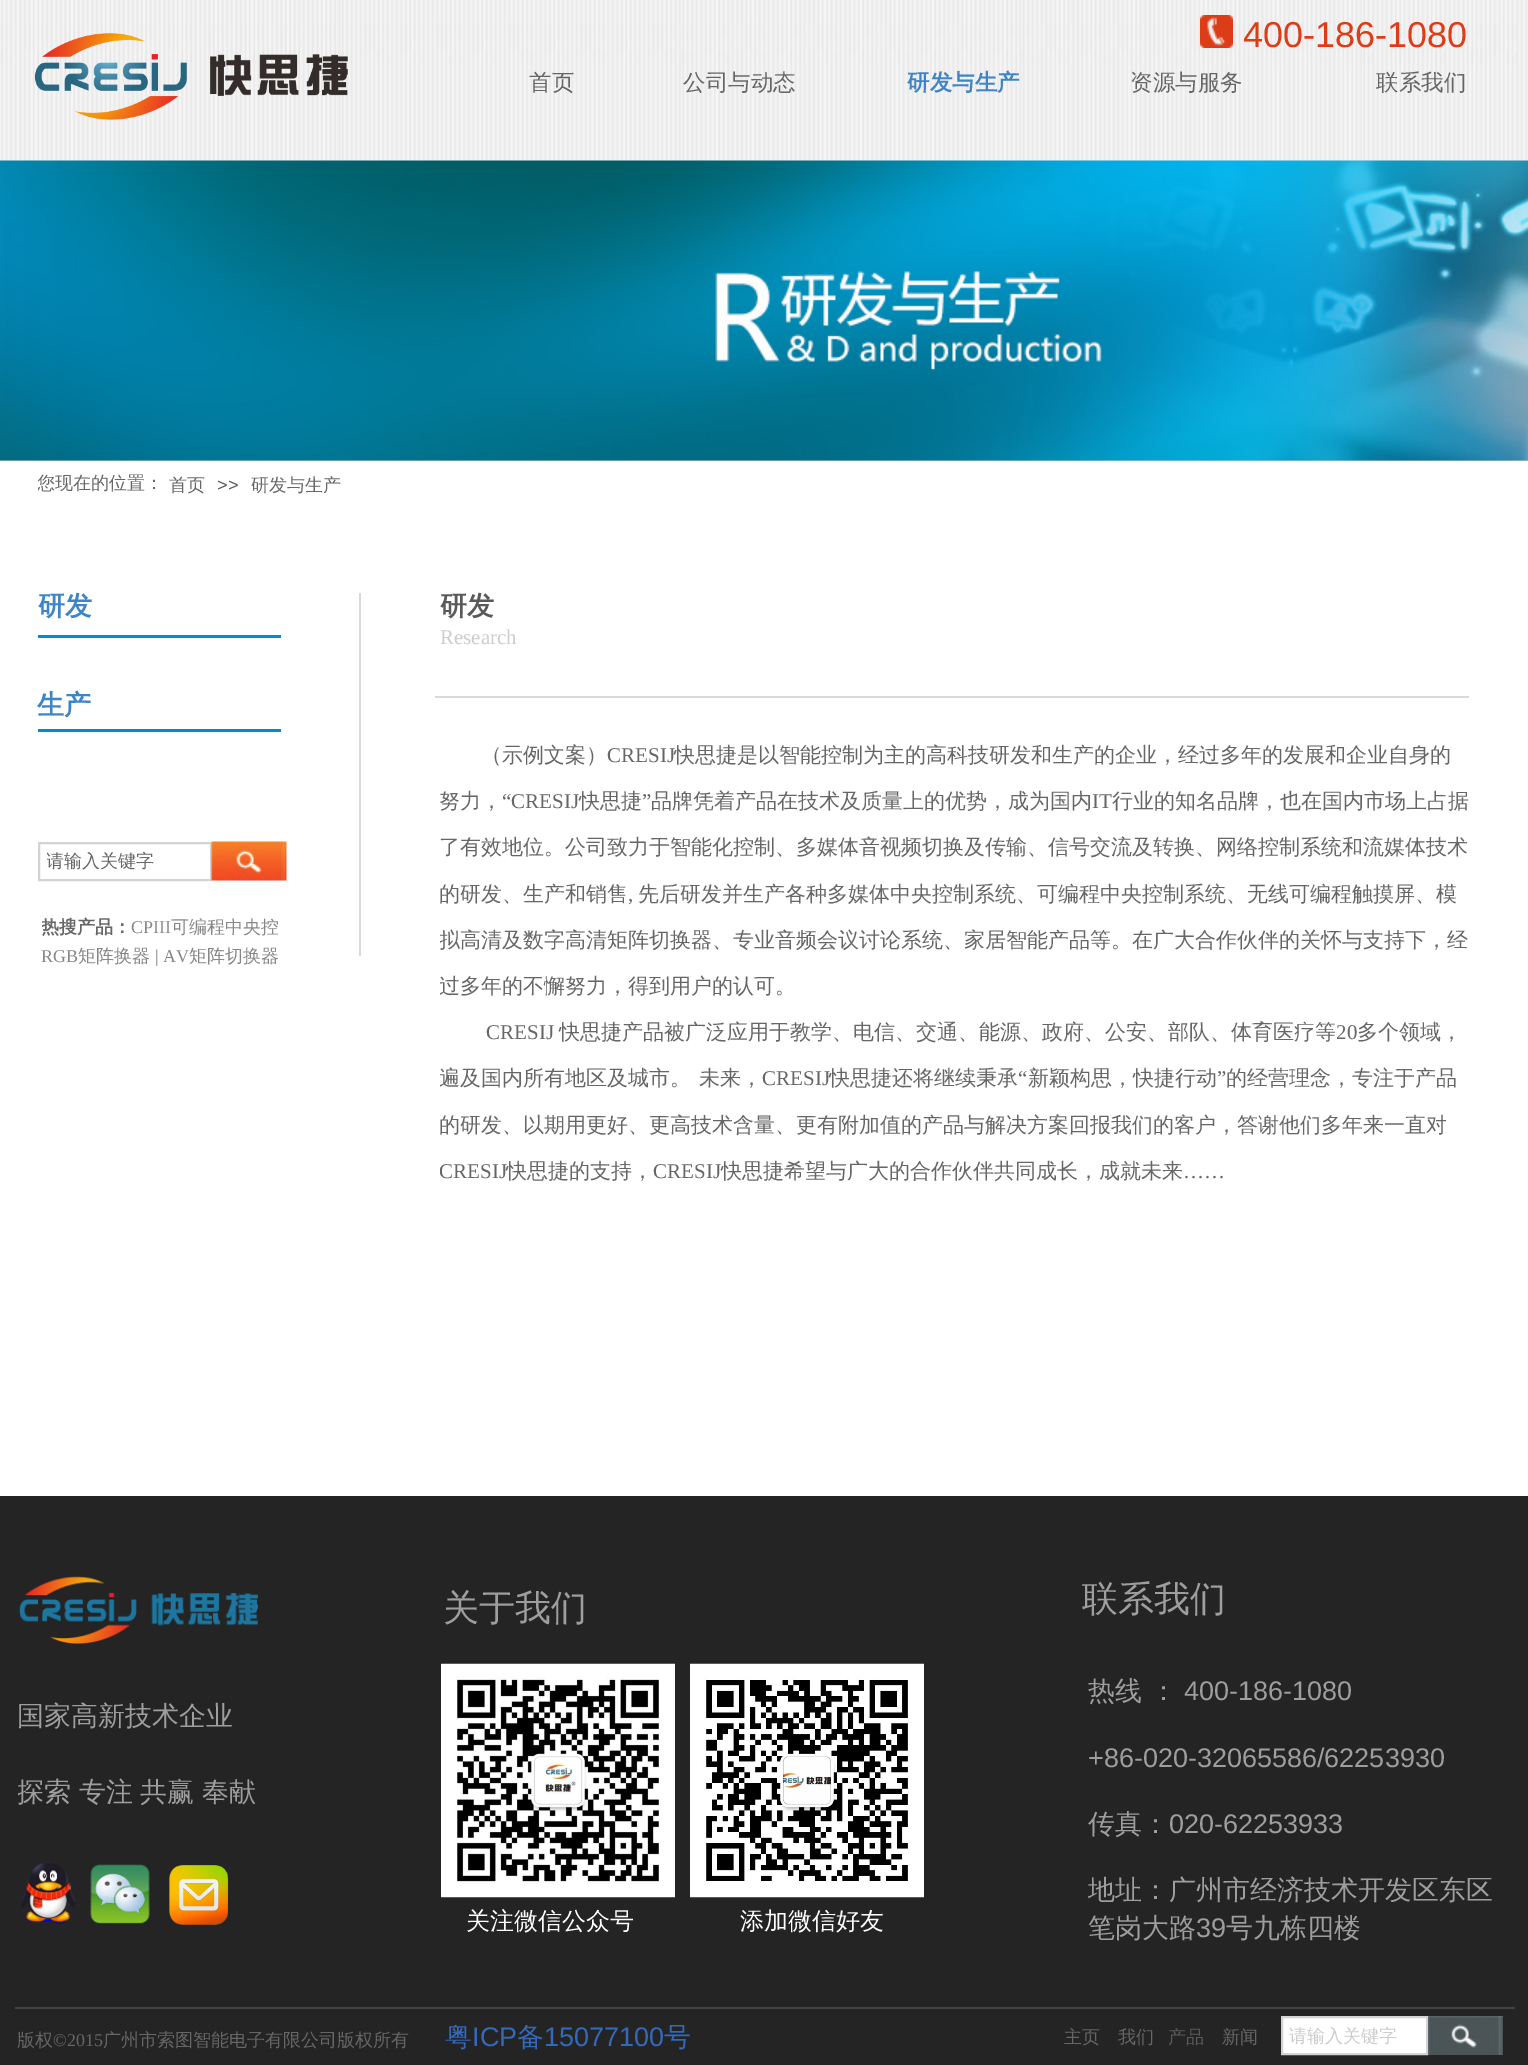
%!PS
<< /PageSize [1528 2065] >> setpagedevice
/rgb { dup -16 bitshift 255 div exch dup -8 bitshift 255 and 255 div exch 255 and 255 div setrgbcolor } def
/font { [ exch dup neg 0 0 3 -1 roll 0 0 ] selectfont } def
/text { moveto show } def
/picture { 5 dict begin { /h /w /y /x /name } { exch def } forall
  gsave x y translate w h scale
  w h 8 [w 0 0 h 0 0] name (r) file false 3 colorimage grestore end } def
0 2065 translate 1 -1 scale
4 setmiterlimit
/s1 { /LiberationSans-Regular 36 font 16#DD3D16 rgb } def
/s2 { /WenQuanYiZenHei-Medium 22.5 font 16#666666 rgb } def
/s3 { /WenQuanYiZenHei-Bold 22.5 font 16#3D85C6 rgb } def
/s4 { /WenQuanYiZenHei-Medium 18 font 16#666666 rgb } def
/s5 { /LiberationSans-Regular 18 font 16#5A5A5A rgb } def
/s6 { /WenQuanYiZenHei-Bold 27 font 16#3D85C6 rgb } def
/s7 { /WenQuanYiZenHei-Bold 27 font 16#5A5A5A rgb } def
/s8 { /LiberationSerif-Regular 21 font 16#CCCCCC rgb } def
/s9 { /WenQuanYiZenHei-Medium 21 font 16#666666 rgb } def
/s10 { /LiberationSerif-Regular 21 font 16#666666 rgb } def
/s11 { /WenQuanYiZenHei-Bold 18 font 16#666666 rgb } def
/s12 { /LiberationSerif-Regular 18 font 16#878787 rgb } def
/s13 { /WenQuanYiZenHei-Medium 18 font 16#878787 rgb } def
/s14 { /WenQuanYiZenHei-Medium 36 font 16#9E9E9E rgb } def
/s15 { /WenQuanYiZenHei-Medium 27 font 16#9E9E9E rgb } def
/s16 { /LiberationSans-Regular 27 font 16#9E9E9E rgb } def
/s17 { /WenQuanYiZenHei-Medium 24 font 16#FFFFFF rgb } def
/s18 { /LiberationSerif-Regular 18 font 16#666666 rgb } def
/s19 { /WenQuanYiZenHei-Medium 27 font 16#3468BA rgb } def
/s20 { /LiberationSans-Regular 27 font 16#3468BA rgb } def
/s21 { /WenQuanYiZenHei-Medium 18 font 16#5A5A5A rgb } def
/s22 { /WenQuanYiZenHei-Medium 18 font 16#CCCCCC rgb } def
16#FFFFFF rgb
0 0 1528 2065 rectfill
(pic1.raw) 0 0 1528 161 picture
(pic2.raw) 34 33 314 87 picture
(pic3.raw) 1200 15 33 33 picture
gsave
1244 9 238 57 rectclip
s1
(400-186-1080) 1243 47 text
grestore
s2
(首页) 529 90 text
(公司与动态) 683 90 text
s3
(研发与生产) 907 90 text
s2
(资源与服务) 1130 90 text
(联系我们) 1376 90 text
16#CCCCCC rgb
0 460 1528 1 rectfill
(pic4.raw) 0 160 1528 301 picture
gsave
38 471 148 38 rectclip
s4
(您现在的位置：) 37 489 text
grestore
s4
(首页) 169 491 text
s5
(>>) 217 491 text
s4
(研发与生产) 251 491 text
s6
(研发) 38 615 text
16#D9D9D9 rgb
359 593 2 363 rectfill
s7
(研发) 440 615 text
s8
(Research) 440 644 text
16#028BCF rgb
38 635 243 3 rectfill
s6
(生产) 37 714 text
16#D9D9D9 rgb
435 696 1034 2 rectfill
16#028BCF rgb
38 729 243 3 rectfill
16#D3D3D3 rgb
2 setlinewidth
39 843 172 37 rectstroke
gsave
47 843 156 36 rectclip
s4
(请输入关键字) 46 867 text
grestore
(pic5.raw) 211 841 76 40 picture
s9
(（示例文案）) 481 762 text
s10
(CRESIJ) 607 762 text
s9
(快思捷是以智能控制为主的高科技研发和生产的企业，经过多年的发展和企业自身的) 674 762 text
(努力，) 439 808 text
s10
(“CRESIJ) 502 808 text
s9
(快思捷) 579 808 text
s10
(”) 642 808 text
s9
(品牌凭着产品在技术及质量上的优势，成为国内) 651 808 text
s10
(IT) 1092 808 text
s9
(行业的知名品牌，也在国内市场上占据) 1112 808 text
(了有效地位。公司致力于智能化控制、多媒体音视频切换及传输、信号交流及转换、网络控制系统和流媒体技术) 439 854 text
(的研发、生产和销售) 439 901 text
s10
(,) 628 901 text
s9
(先后研发并生产各种多媒体中央控制系统、可编程中央控制系统、无线可编程触摸屏、模) 638 901 text
gsave
440 734 1030 543 rectclip
(拟高清及数字高清矩阵切换器、专业音频会议讨论系统、家居智能产品等。在广大合作伙伴的关怀与支持下，经) 439 947 text
(过多年的不懈努力，得到用户的认可。) 439 993 text
grestore
s10
(CRESIJ) 486 1039 text
s9
(快思捷产品被广泛应用于教学、电信、交通、能源、政府、公安、部队、体育医疗等) 559 1039 text
s10
(20) 1336 1039 text
s9
(多个领域，) 1357 1039 text
gsave
440 734 1030 543 rectclip
(遍及国内所有地区及城市。) 439 1085 text
grestore
(未来，) 699 1085 text
s10
(CRESIJ) 762 1085 text
s9
(快思捷还将继续秉承) 829 1085 text
s10
(“) 1018 1085 text
s9
(新颖构思，快捷行动) 1028 1085 text
s10
(”) 1217 1085 text
s9
(的经营理念，专注于产品) 1226 1085 text
(的研发、以期用更好、更高技术含量、更有附加值的产品与解决方案回报我们的客户，答谢他们多年来一直对) 439 1132 text
gsave
440 734 1030 543 rectclip
s10
(CRESIJ) 439 1178 text
grestore
(快思捷的支持，) 506 1178 text
s10
(CRESIJ) 653 1178 text
s9
(快思捷希望与广大的合作伙伴共同成长，成就未来) 721 1178 text
s10
(……) 1183 1178 text
gsave
42 914 293 87 rectclip
s11
(热搜产品：) 41 933 text
grestore
s12
(CPIII) 131 933 text
s13
(可编程中央控) 171 933 text
s12
(RGB) 41 962 text
s13
(矩阵换器) 78 962 text
s12
(| AV) 155 962 text
s13
(矩阵切换器) 189 962 text
16#242424 rgb
0 1496 1528 569 rectfill
(pic6.raw) 19 1576 239 68 picture
s14
(关于我们) 443 1620 text
(联系我们) 1082 1611 text
s15
(热线 ：) 1088 1700 text
s16
(400-186-1080) 1184 1700 text
(+86-020-32065586/62253930) 1088 1767 text
s15
(传真：) 1088 1833 text
s16
(020-62253933) 1169 1833 text
s15
(地址：广州市经济技术开发区东区) 1088 1899 text
(笔岗大路) 1088 1937 text
s16
(39) 1196 1937 text
s15
(号九栋四楼) 1226 1937 text
(国家高新技术企业) 17 1725 text
gsave
18 1698 398 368 rectclip
17 1801 moveto -0.5 0 32 (探索 专注 共赢 奉献) widthshow
grestore
(pic7.raw) 441 1663 234 235 picture
(pic8.raw) 690 1663 234 235 picture
(pic12.raw) 28 1908 38 16 picture
(pic9.raw) 21 1861 55 62 picture
(pic10.raw) 90 1864 60 60 picture
(pic11.raw) 169 1865 60 60 picture
s17
(关注微信公众号) 466 1929 text
(添加微信好友) 740 1929 text
16#434343 rgb
15 2007 1500 2 rectfill
s4
(版权) 17 2046 text
s18
(©2015) 53 2046 text
s4
(广州市索图智能电子有限公司版权所有) 103 2046 text
gsave
18 2025 743 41 rectclip
s19
(粤) 445 2046 text
grestore
s20
(ICP) 472 2046 text
gsave
18 2025 743 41 rectclip
s19
(备) 517 2046 text
grestore
(15077100) 544 2046 text
gsave
18 2025 743 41 rectclip
s19
(号) 664 2046 text
grestore
s4
(主页) 1064 2043 text
(我们) 1118 2043 text
s21
(产品) 1168 2043 text
s4
(新闻) 1222 2043 text
16#FFFFFF rgb
1282 2017 moveto 1427 2017 lineto 1427 2054 lineto 1282 2054 lineto closepath gsave fill grestore
16#D3D3D3 rgb
stroke
s22
(请输入关键字) 1289 2042 text
(pic13.raw) 1428 2016 75 39 picture
showpage
